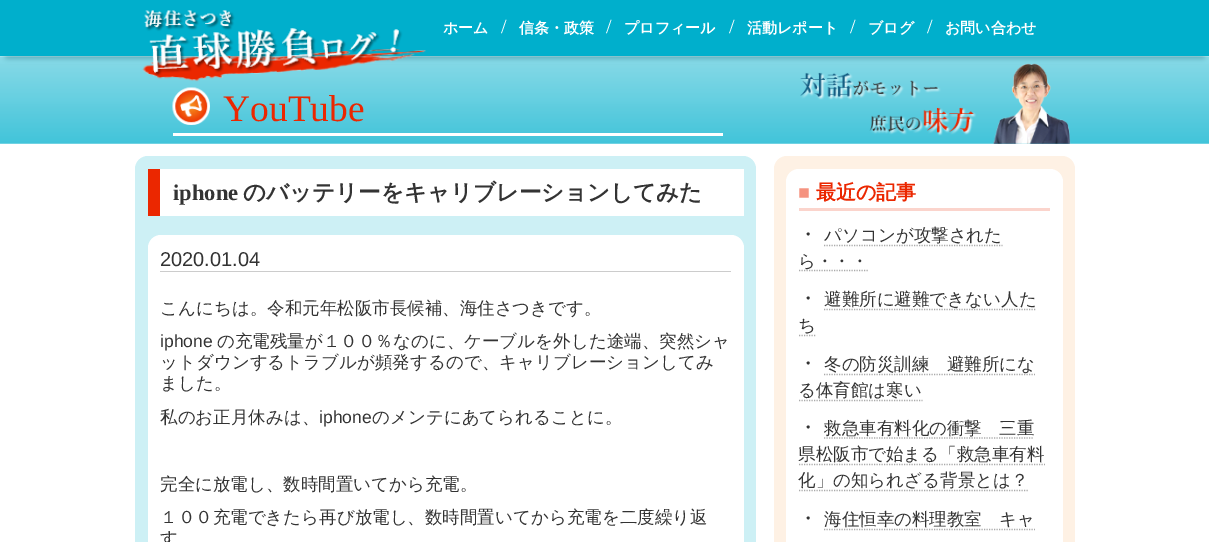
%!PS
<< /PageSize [1209 542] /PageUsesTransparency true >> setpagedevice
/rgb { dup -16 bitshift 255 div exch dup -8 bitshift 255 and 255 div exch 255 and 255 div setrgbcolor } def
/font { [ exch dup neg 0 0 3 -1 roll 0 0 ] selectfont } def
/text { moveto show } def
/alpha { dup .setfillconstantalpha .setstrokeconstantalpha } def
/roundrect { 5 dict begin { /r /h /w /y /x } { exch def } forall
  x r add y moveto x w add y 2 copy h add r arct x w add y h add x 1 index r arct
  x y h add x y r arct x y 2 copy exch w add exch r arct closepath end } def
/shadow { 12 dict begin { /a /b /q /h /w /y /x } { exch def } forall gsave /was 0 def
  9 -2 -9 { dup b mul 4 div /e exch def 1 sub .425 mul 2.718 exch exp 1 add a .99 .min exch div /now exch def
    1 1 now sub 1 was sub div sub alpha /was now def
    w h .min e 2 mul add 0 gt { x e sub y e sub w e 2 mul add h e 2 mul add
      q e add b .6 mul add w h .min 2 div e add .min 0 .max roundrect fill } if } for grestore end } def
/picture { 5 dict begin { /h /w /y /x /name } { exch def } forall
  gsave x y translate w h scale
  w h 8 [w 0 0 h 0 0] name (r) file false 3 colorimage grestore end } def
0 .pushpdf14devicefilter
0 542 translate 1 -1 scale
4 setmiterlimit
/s1 { /WenQuanYiZenHei-Bold 15 font 16#FFFFFF rgb } def
/s2 { /LiberationSerif-Regular 20 font 16#FFFFFF rgb } def
/s3 { /LiberationSerif-Regular 37.5 font 16#EB2700 rgb } def
/s4 { /LiberationSerif-Bold 22.5 font 16#333333 rgb } def
/s5 { /WenQuanYiZenHei-Bold 22.5 font 16#333333 rgb } def
/s6 { /LiberationSans-Regular 20 font 16#333333 rgb } def
/s7 { /WenQuanYiZenHei-Medium 17.5 font 16#333333 rgb } def
/s8 { /LiberationSans-Regular 17.5 font 16#333333 rgb } def
/s9 { /LiberationSans-Bold 20 font 16#F59380 rgb } def
/s10 { /WenQuanYiZenHei-Bold 20 font 16#EB2700 rgb } def
/s11 { /WenQuanYiZenHei-Medium 20 font 16#333333 rgb } def
16#FFFFFF rgb
0 0 1209 542 rectfill
16#000000 rgb
5 13 1200 46 0 2.5 0.3 shadow
16#00AFCC rgb
0 0 1209 56 rectfill
(pic2.raw) 0 56 1209 88 picture
(pic1.raw) 142 10 284 72 picture
s1
(ホーム) 443 33 text
s2
(/) 501 33 text
s1
(信条・政策) 519 33 text
s2
(/) 606 33 text
s1
(プロフィール) 624 33 text
s2
(/) 729 33 text
s1
(活動レポート) 747 33 text
s2
(/) 850 33 text
s1
(ブログ) 868 33 text
s2
(/) 927 33 text
s1
(お問い合わせ) 945 33 text
(pic3.raw) 172 87 38 38 picture
173 133 550 3 rectfill
s3
(YouTube) 223 121 text
16#CDF0F5 rgb
135 156 621 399 13 roundrect fill
16#FFFFFF rgb
160 169 584 47 rectfill
16#EB2700 rgb
148 169 12 47 rectfill
s4
(iphone) 173 200 text
s5
(のバッテリーをキャリブレーションしてみた) 243 200 text
16#FFFFFF rgb
148 235 596 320 13 roundrect fill
16#CCCCCC rgb
160 271 571 1 rectfill
s6
(2020.01.04) 160 266 text
s7
(こんにちは。令和元年松阪市長候補、海住さつきです。) 160 314 text
s8
(iphone) 160 347 text
s7
(の充電残量が１００％なのに、ケーブルを外した途端、突然シャ) 217 347 text
(ットダウンするトラブルが頻発するので、キャリブレーションしてみ) 160 368 text
(ました。) 160 389 text
(私のお正月休みは、) 160 423 text
s8
(iphone) 319 423 text
s7
(のメンテにあてられることに。) 372 423 text
(完全に放電し、数時間置いてから充電。) 160 490 text
(１００充電できたら再び放電し、数時間置いてから充電を二度繰り返) 160 523 text
(す) 160 544 text
(pic4.raw) 800 63 271 81 picture
16#FEF1E4 rgb
774 156 301 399 13 roundrect fill
16#FFFFFF rgb
786 169 277 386 13 roundrect fill
16#FBD4CC rgb
799 208 251 3 rectfill
s9
(■) 798 199 text
s10
(最近の記事) 816 199 text
s11
(・) 798 241 text
s7
(パソコンが攻撃された) 824 241 text
16#AAAAAA rgb
1.2 setlinewidth
[1.25 1.25] 0 setdash
824 245.5 moveto 1002.5 245.5 lineto stroke
799 270.5 moveto 869 270.5 lineto stroke
s7
(ら・・・) 798 267 text
s11
(・) 798 305 text
16#AAAAAA rgb
824 309.5 moveto 1036 309.5 lineto stroke
s7
(避難所に避難できない人た) 824 305 text
(ち) 798 331 text
16#AAAAAA rgb
799 335.5 moveto 816 335.5 lineto stroke
s11
(・) 798 370 text
16#AAAAAA rgb
824 374.5 moveto 1035 374.5 lineto stroke
s7
(冬の防災訓練　避難所にな) 824 370 text
(る体育館は寒い) 798 396 text
16#AAAAAA rgb
799 400.5 moveto 922.5 400.5 lineto stroke
s11
(・) 798 434 text
s7
(救急車有料化の衝撃　三重) 824 434 text
16#AAAAAA rgb
824 438 moveto 1034 438 lineto stroke
s7
(県松阪市で始まる「救急車有料) 798 460 text
16#AAAAAA rgb
799 464.5 moveto 1045 464.5 lineto stroke
s7
(化」の知られざる背景とは？) 798 486 text
16#AAAAAA rgb
799 490.5 moveto 1029 490.5 lineto stroke
s11
(・) 798 525 text
s7
(海住恒幸の料理教室　キャ) 824 525 text
16#AAAAAA rgb
824 529.5 moveto 1035 529.5 lineto stroke
.poppdf14devicefilter showpage
